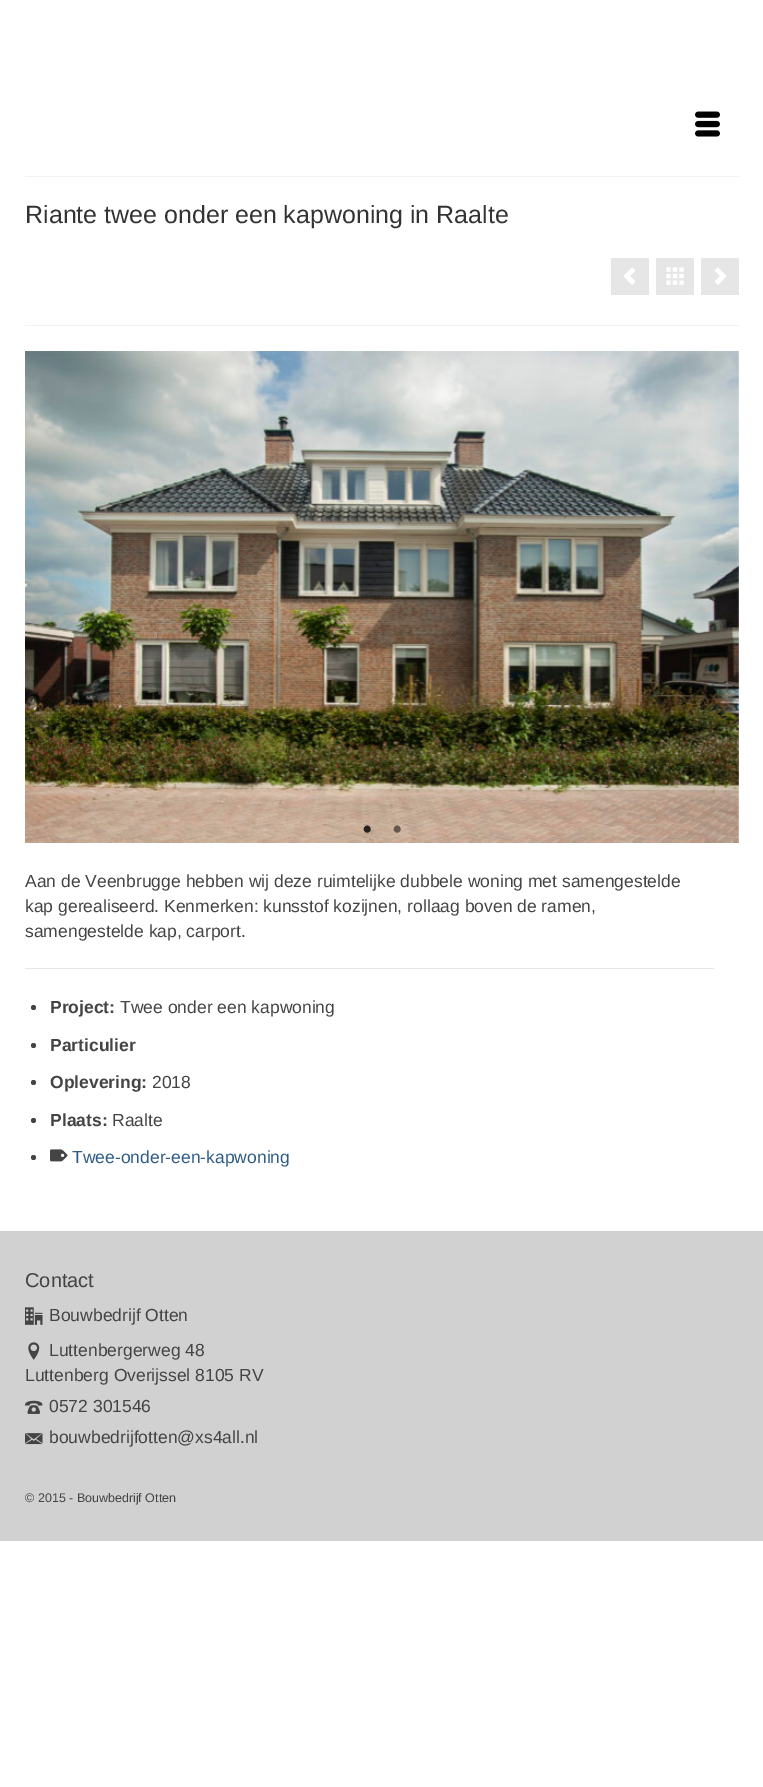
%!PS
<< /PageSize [763 1787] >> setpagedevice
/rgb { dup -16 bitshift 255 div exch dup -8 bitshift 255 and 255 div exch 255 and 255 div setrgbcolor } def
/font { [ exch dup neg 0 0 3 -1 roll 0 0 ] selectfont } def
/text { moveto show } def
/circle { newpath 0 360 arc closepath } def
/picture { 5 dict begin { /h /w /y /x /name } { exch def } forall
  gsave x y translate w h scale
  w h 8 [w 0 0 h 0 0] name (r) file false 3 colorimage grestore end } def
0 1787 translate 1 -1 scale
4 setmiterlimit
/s1 { /LiberationSans-Regular 25 font 16#333333 rgb } def
/s2 { /LiberationSerif-Regular 30 font 16#28221E rgb } def
/s3 { /LiberationSerif-Regular 30 font 16#65594F rgb } def
/s4 { /LiberationSans-Regular 17.5 font 16#444444 rgb } def
/s5 { /LiberationSans-Bold 17.5 font 16#444444 rgb } def
/s6 { /LiberationSans-Regular 17.5 font 16#2D5C88 rgb } def
/s7 { /LiberationSans-Regular 20 font 16#444444 rgb } def
/s8 { /LiberationSans-Regular 12.5 font 16#444444 rgb } def
16#FFFFFF rgb
0 0 763 1787 rectfill
(pic1.raw) 695 111 25 26 picture
16#F2F2F2 rgb
25 176 714 1 rectfill
25 325 714 1 rectfill
s1
(Riante twee onder een kapwoning in Raalte) 25 223 text
16#E6E6E6 rgb
611 258 38 37 rectfill
656 258 38 37 rectfill
701 258 38 37 rectfill
16#FFFFFF rgb
632 285 moveto 635.5 281.5 lineto 630 276 lineto 635.5 270.5 lineto 632 267.5 lineto 623.5 276 lineto closepath fill
(pic2.raw) 666 267 18 18 picture
718 267.5 moveto 714.5 270.5 lineto 720 276 lineto 714.5 281.5 lineto 718 285 lineto 726.5 276 lineto closepath fill
(pic3.raw) 25 351 714 492 picture
s2
(•) 362 839 text
s3
(•) 392 839 text
s4
(Aan de Veenbrugge hebben wij deze ruimtelijke dubbele woning met samengestelde) 25 887 text
(kap gerealiseerd. Kenmerken: kunsstof kozijnen, rollaag boven de ramen,) 25 912 text
(samengestelde kap, carport.) 25 937 text
16#E6E6E6 rgb
25 968 689 1 rectfill
16#444444 rgb
33.5 1007.5 2.5 circle fill
s5
(Project:) 50 1013 text
s4
(Twee onder een kapwoning) 120 1013 text
33.5 1045.5 2.5 circle fill
s5
(Particulier) 50 1051 text
33.5 1082.5 2.5 circle fill
(Oplevering:) 50 1088 text
s4
(2018) 152 1088 text
33.5 1120.5 2.5 circle fill
s5
(Plaats:) 50 1126 text
s4
(Raalte) 112 1126 text
33.5 1157.5 2.5 circle fill
(pic4.raw) 50 1149 18 13 picture
s6
(Twee-onder-een-kapwoning) 72 1163 text
16#D1D1D1 rgb
0 1231 763 310 rectfill
s7
(Contact) 25 1287 text
(pic5.raw) 25 1307 18 18 picture
s4
(Bouwbedrijf Otten) 49 1321 text
(pic6.raw) 28 1342 12 18 picture
(Luttenbergerweg 48) 49 1356 text
(Luttenberg Overijssel 8105 RV) 25 1381 text
(pic7.raw) 25 1400 18 14 picture
(0572 301546) 49 1412 text
(pic8.raw) 25 1433 18 12 picture
(bouwbedrijfotten@xs4all.nl) 49 1443 text
s8
(© 2015 - Bouwbedrijf Otten) 25 1502 text
showpage
